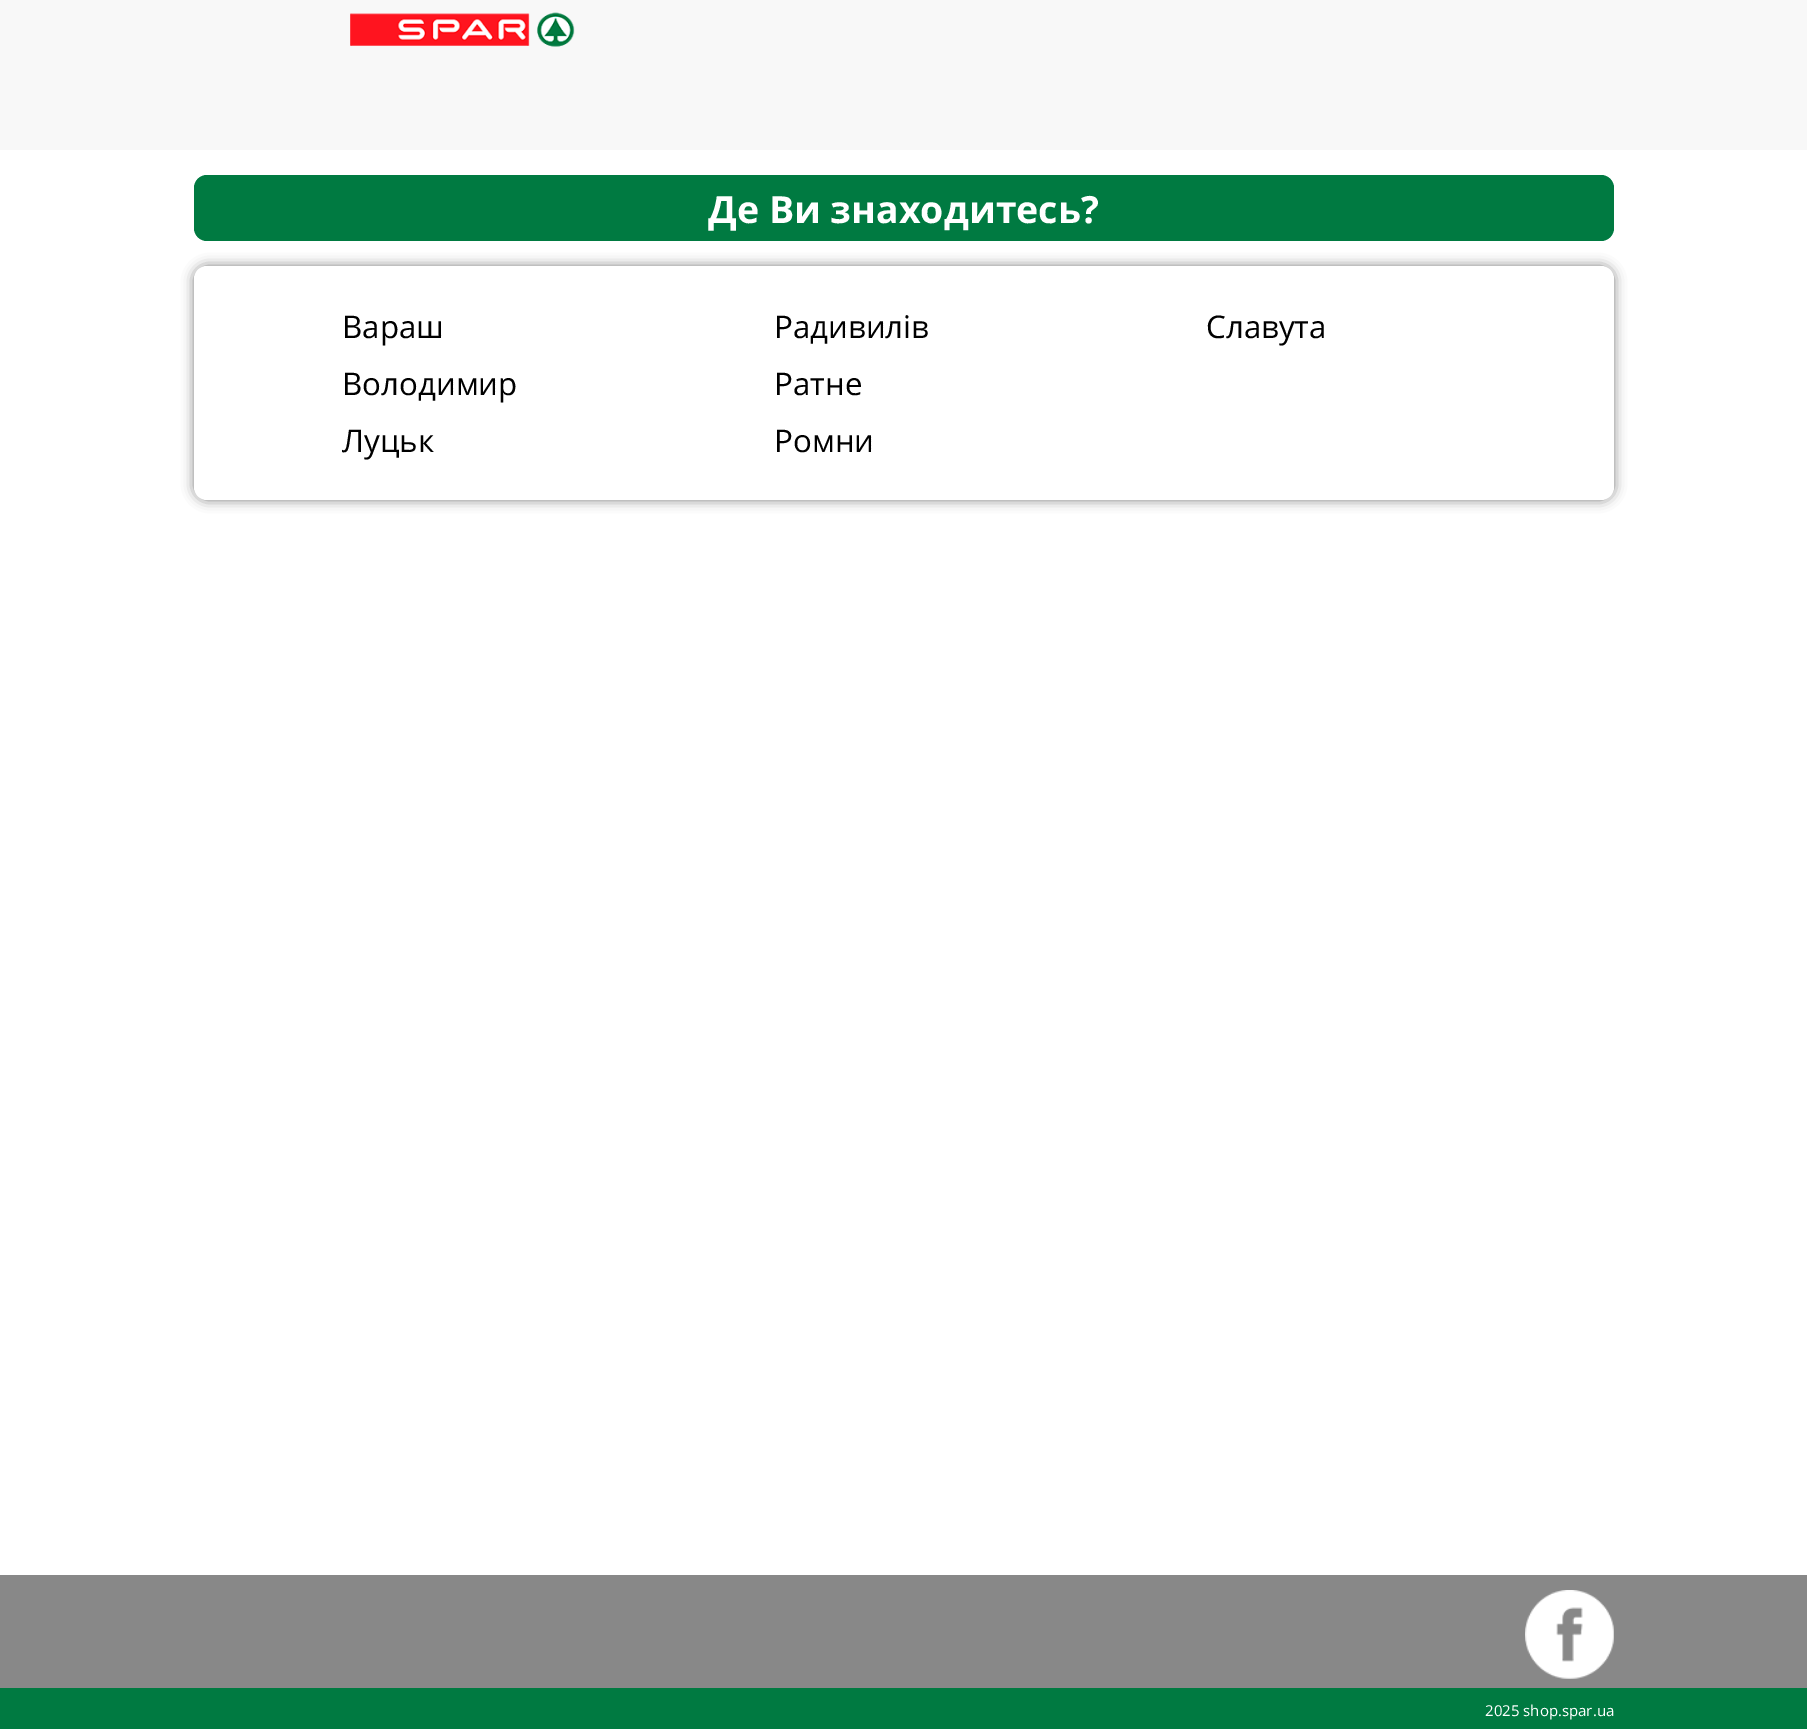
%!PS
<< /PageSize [1807 1729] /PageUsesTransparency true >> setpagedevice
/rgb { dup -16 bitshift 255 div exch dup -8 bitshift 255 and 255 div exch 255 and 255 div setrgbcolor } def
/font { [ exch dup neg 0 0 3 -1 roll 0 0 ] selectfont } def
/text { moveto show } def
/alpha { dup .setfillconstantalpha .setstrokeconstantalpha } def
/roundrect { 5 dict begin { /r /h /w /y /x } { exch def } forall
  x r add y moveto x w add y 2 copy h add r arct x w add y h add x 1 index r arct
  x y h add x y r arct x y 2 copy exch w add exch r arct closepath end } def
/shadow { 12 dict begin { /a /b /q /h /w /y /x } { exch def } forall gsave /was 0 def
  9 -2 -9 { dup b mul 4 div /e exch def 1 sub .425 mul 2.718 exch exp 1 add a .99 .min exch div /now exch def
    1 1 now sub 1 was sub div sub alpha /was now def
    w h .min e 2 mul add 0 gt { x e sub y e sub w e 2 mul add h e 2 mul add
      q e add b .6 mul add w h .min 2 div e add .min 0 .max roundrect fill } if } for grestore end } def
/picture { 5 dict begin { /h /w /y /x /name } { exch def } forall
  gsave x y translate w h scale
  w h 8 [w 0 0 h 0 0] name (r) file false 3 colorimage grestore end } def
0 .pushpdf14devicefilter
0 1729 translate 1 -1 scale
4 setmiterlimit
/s1 { /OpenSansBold-Bold 37.5 font 16#FFFFFF rgb } def
/s2 { /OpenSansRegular-Regular 31.25 font 16#000000 rgb } def
/s3 { /OpenSansRegular-Regular 15 font 16#FFFFFF rgb } def
16#FFFFFF rgb
0 0 1807 1729 rectfill
16#F8F8F8 rgb
0 0 1807 150 rectfill
(pic1.raw) 350 12 225 35 picture
16#007A41 rgb
194 175 1420 66 13 roundrect fill
s1
(Де Ви знаходитесь?) 708 223 text
16#000000 rgb
194 266 1420 234 13 6 0.5 shadow
16#FFFFFF rgb
194 266 1420 234 13 roundrect fill
s2
(Вараш) 342 338 text
(Радивилів) 774 338 text
(Славута) 1206 338 text
(Володимир) 342 395 text
(Ратне) 774 395 text
(Луцьк) 342 452 text
(Ромни) 774 452 text
16#888888 rgb
0 1575 1807 113 rectfill
(pic2.raw) 1525 1590 89 89 picture
16#007A41 rgb
0 1688 1807 41 rectfill
s3
(2025 shop.spar.ua) 1485 1716 text
.poppdf14devicefilter showpage
